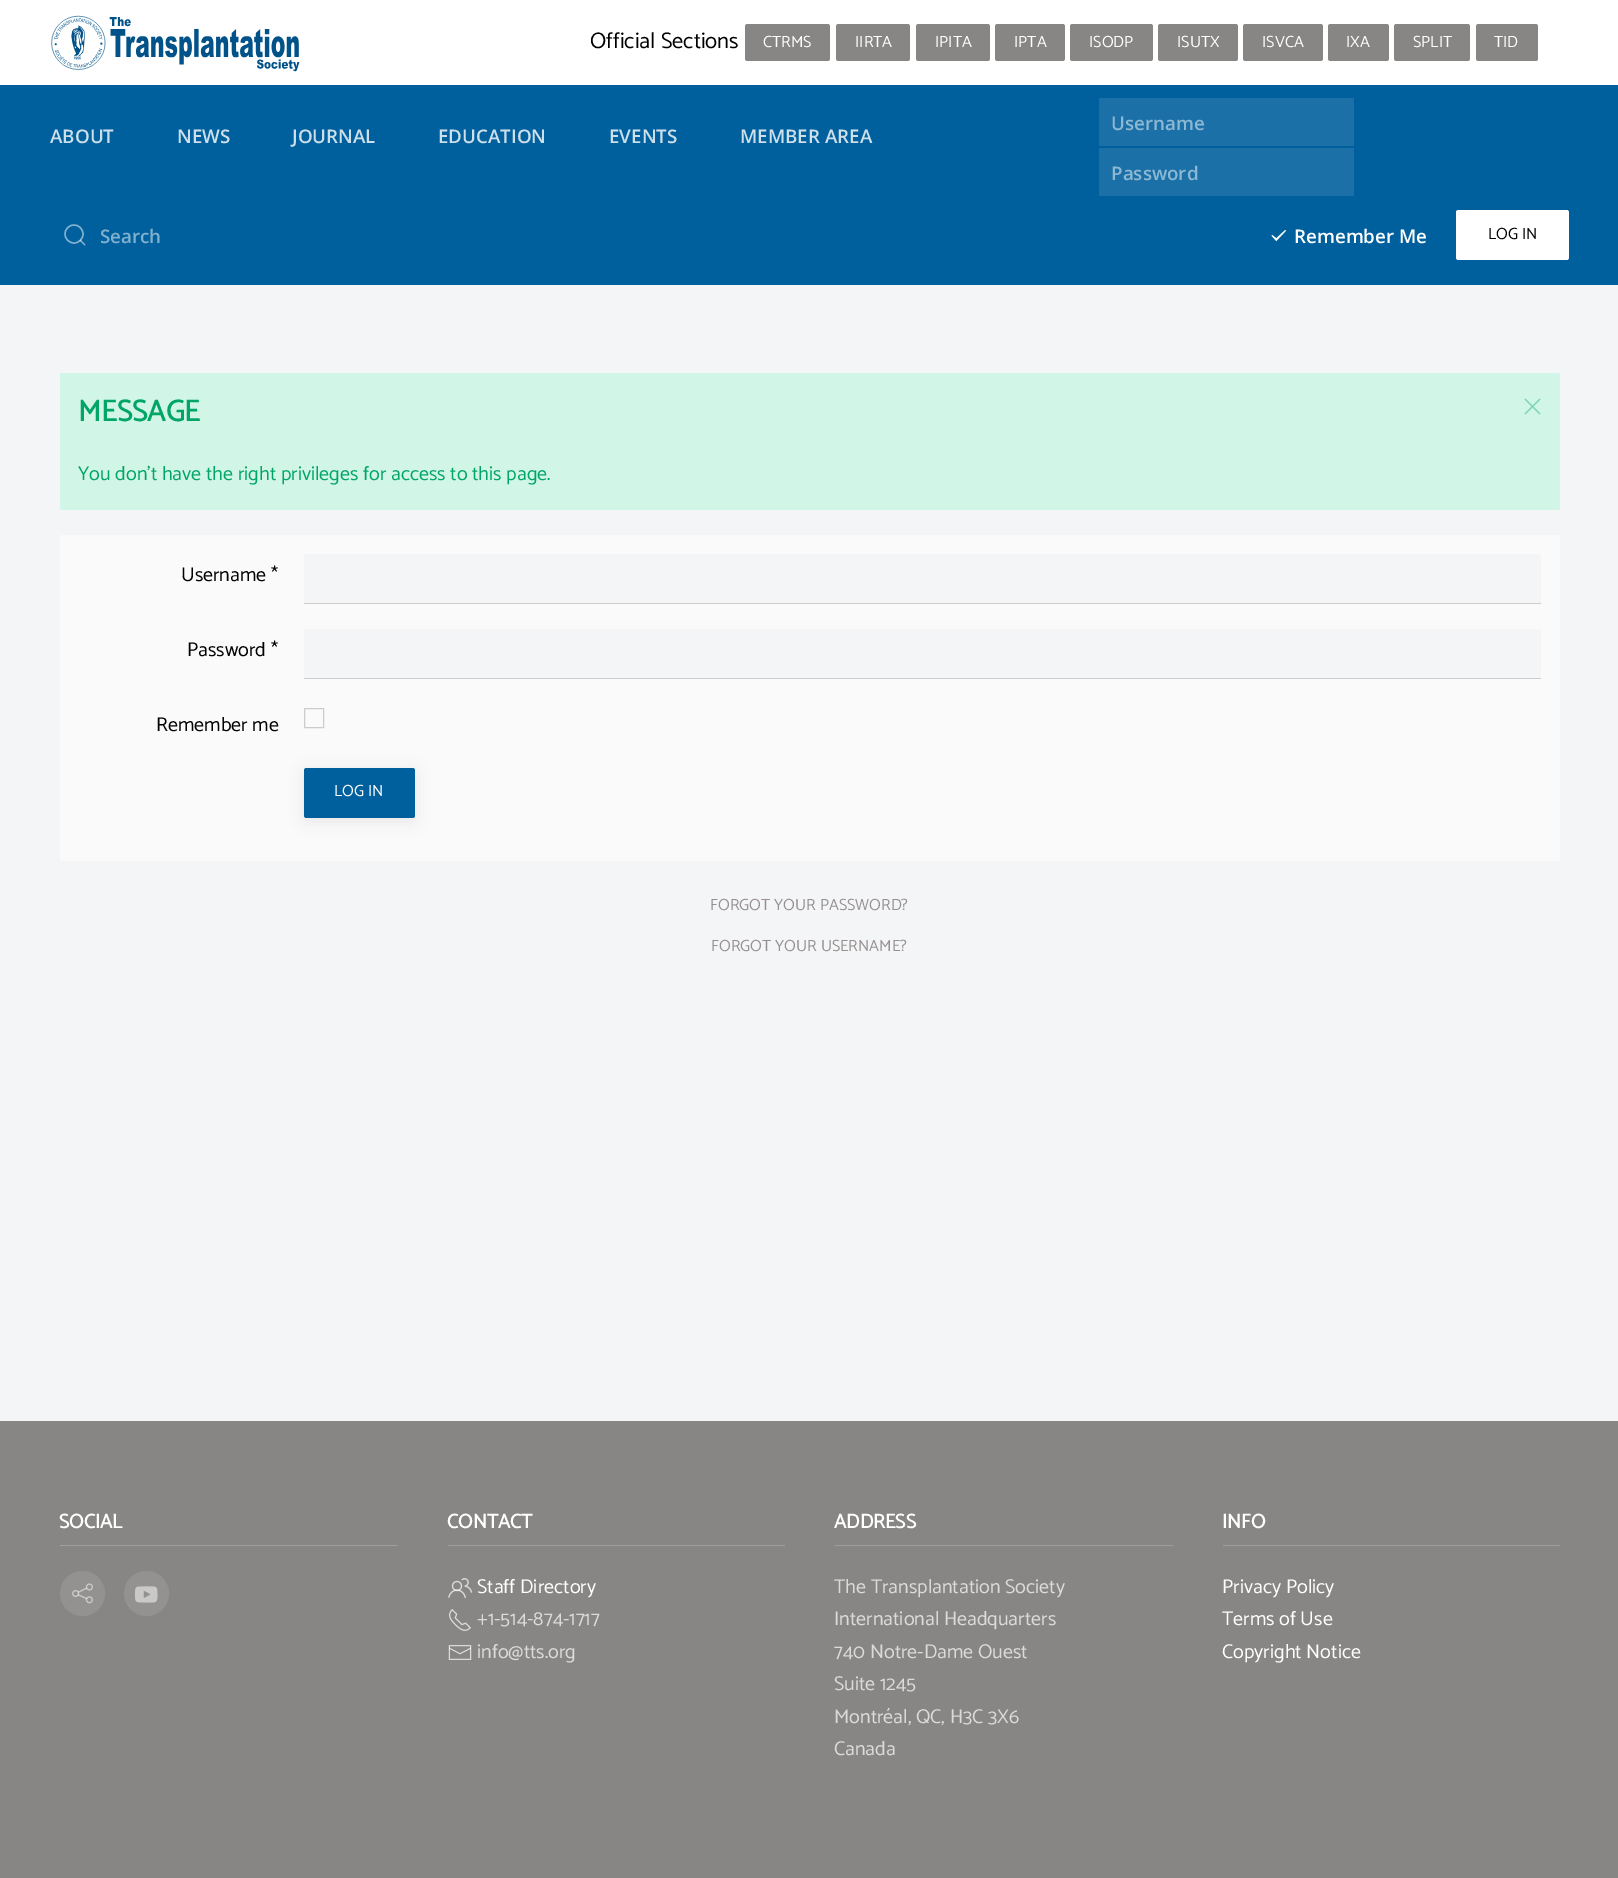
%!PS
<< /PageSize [1618 1878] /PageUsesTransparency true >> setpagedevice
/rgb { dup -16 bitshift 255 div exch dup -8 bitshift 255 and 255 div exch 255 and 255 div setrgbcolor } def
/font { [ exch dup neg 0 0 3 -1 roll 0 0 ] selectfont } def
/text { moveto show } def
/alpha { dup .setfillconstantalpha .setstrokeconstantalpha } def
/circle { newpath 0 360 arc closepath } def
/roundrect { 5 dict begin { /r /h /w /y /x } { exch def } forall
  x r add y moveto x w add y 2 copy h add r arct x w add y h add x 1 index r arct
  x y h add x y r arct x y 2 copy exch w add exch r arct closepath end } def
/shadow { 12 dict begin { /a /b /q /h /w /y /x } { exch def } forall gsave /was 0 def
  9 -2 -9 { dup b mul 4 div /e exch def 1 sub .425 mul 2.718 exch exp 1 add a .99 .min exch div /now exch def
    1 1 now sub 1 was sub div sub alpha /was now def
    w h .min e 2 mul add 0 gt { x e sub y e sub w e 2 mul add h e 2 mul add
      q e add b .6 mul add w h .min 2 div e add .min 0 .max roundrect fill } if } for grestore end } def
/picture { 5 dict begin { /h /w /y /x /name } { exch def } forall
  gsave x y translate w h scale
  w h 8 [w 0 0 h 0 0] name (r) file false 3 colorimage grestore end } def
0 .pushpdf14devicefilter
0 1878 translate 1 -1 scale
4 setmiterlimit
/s1 { /Catamaran-Regular 22.5 font 16#000000 rgb } def
/s2 { /Catamaran-Regular 16.25 font 16#FFFFFF rgb } def
/s3 { /OpenSans-SemiBold 18.75 font 16#CCDFEB rgb } def
/s4 { /OpenSans-SemiBold 18.75 font 16#80B0CE rgb } def
/s5 { /OpenSans-SemiBold 18.75 font 16#8DB8D3 rgb } def
/s6 { /OpenSans-SemiBold 18.75 font 16#FFFFFF rgb } def
/s7 { /Catamaran-Regular 16.25 font 16#000000 rgb } def
/s8 { /Catamaran-Bold 30 font 16#01A566 rgb } def
/s9 { /Catamaran-Regular 20 font 16#01A566 rgb } def
/s10 { /Catamaran-Regular 20 font 16#000000 rgb } def
/s11 { /Catamaran-Regular 16.25 font 16#989090 rgb } def
/s12 { /Catamaran-Bold 20 font 16#FFFFFF rgb } def
/s13 { /Catamaran-Regular 20 font 16#FFFFFF rgb } def
/s14 { /Catamaran-Regular 20 font 16#DBDBDA rgb } def
16#F3F5F7 rgb
0 0 1618 1878 rectfill
16#FFFFFF rgb
0 0 1618 85 rectfill
(pic1.raw) 51 15 249 57 picture
s1
(Official Sections) 590 48 text
16#878684 rgb
745 24 85 37 2.5 roundrect fill
s2
(CTRMS) 763 47 text
16#878684 rgb
836 24 74 37 2.5 roundrect fill
s2
(IIRTA) 855 47 text
16#878684 rgb
916 24 74 37 2.5 roundrect fill
s2
(IPITA) 935 47 text
16#878684 rgb
995 24 70 37 2.5 roundrect fill
s2
(IPTA) 1014 47 text
16#878684 rgb
1070 24 83 37 2.5 roundrect fill
s2
(ISODP) 1089 47 text
16#878684 rgb
1158 24 80 37 2.5 roundrect fill
s2
(ISUTX) 1177 47 text
16#878684 rgb
1243 24 80 37 2.5 roundrect fill
s2
(ISVCA) 1262 47 text
16#878684 rgb
1328 24 61 37 2.5 roundrect fill
s2
(IXA) 1346 47 text
16#878684 rgb
1394 24 76 37 2.5 roundrect fill
s2
(SPLIT) 1413 47 text
16#878684 rgb
1476 24 62 37 2.5 roundrect fill
s2
(TID) 1494 47 text
16#00609D rgb
0 85 1618 200 rectfill
s3
(ABOUT) 50 143 text
(NEWS) 177 143 text
(JOURNAL) 292 143 text
(EDUCATION) 438 143 text
(EVENTS) 609 143 text
(MEMBER AREA) 740 143 text
16#80B0CE rgb
1.4 setlinewidth
74 234 9 circle stroke
0.5 alpha
16#FFFFFF rgb
80 240 moveto 85 245 lineto closepath stroke
1 alpha
s4
(Search) 100 243 text
16#1A70A7 rgb
1099 98 255 48 rectfill
s5
(Username) 1111 130 text
16#1A70A7 rgb
1099 148 255 48 rectfill
s5
(Password) 1111 180 text
(pic2.raw) 1271 230 16 12 picture
s6
(Remember Me) 1294 243 text
1456 210 113 50 2.5 roundrect fill
s7
(LOG IN) 1488 239 text
16#D1F6E8 rgb
60 373 1500 137 2.5 roundrect fill
s8
(MESSAGE) 78 421 text
16#7ED6B4 rgb
1525 399 moveto 1540 414 lineto 1540 399 moveto 1525 414 lineto stroke
s9
(You don't have the right privileges for access to this page.) 78 480 text
16#FAFAFA rgb
60 535 1500 326 2.5 roundrect fill
s10
(Username *) 181 581 text
16#F3F5F7 rgb
304 554 1237 49 rectfill
16#CCCCCC rgb
304 603 1237 1 rectfill
s10
(Password *) 187 656 text
16#F3F5F7 rgb
304 629 1237 49 rectfill
16#CCCCCC rgb
304 678 1237 1 rectfill
s10
(Remember me) 156 731 text
16#CCCCCC rgb
1 setlinewidth
304.5 708.5 19 19 rectstroke
16#000000 rgb
304 771 111 50 2.5 7.5 0.07 shadow
16#00609D rgb
304 768 111 50 2.5 roundrect fill
s2
(LOG IN) 334 796 text
s11
(FORGOT YOUR PASSWORD?) 710 910 text
(FORGOT YOUR USERNAME?) 711 951 text
16#878684 rgb
0 1421 1618 457 rectfill
16#9F9E9D rgb
60 1545 338 1 rectfill
s12
(SOCIAL) 59 1528 text
16#939290 rgb
82.5 1593.5 22.5 circle fill
(pic3.raw) 72 1583 21 21 picture
146.5 1593.5 22.5 circle fill
(pic4.raw) 135 1586 23 17 picture
16#9F9E9D rgb
448 1545 337 1 rectfill
s12
(CONTACT) 447 1528 text
(pic5.raw) 448 1578 25 20 picture
s13
(Staff Directory) 477 1593 text
(pic6.raw) 449 1609 22 22 picture
s14
(+1-514-874-1717) 477 1625 text
(pic7.raw) 448 1645 24 15 picture
(info@tts.org) 477 1658 text
16#9F9E9D rgb
835 1545 338 1 rectfill
s12
(ADDRESS) 834 1528 text
s14
(The Transplantation Society) 834 1593 text
(International Headquarters) 834 1625 text
(740 Notre-Dame Ouest) 834 1658 text
(Suite 1245) 834 1690 text
(Montréal, QC, H3C 3X6) 834 1723 text
(Canada) 834 1755 text
16#9F9E9D rgb
1223 1545 337 1 rectfill
s12
(INFO) 1222 1528 text
s13
(Privacy Policy) 1222 1593 text
(Terms of Use) 1222 1625 text
(Copyright Notice) 1222 1658 text
.poppdf14devicefilter showpage
